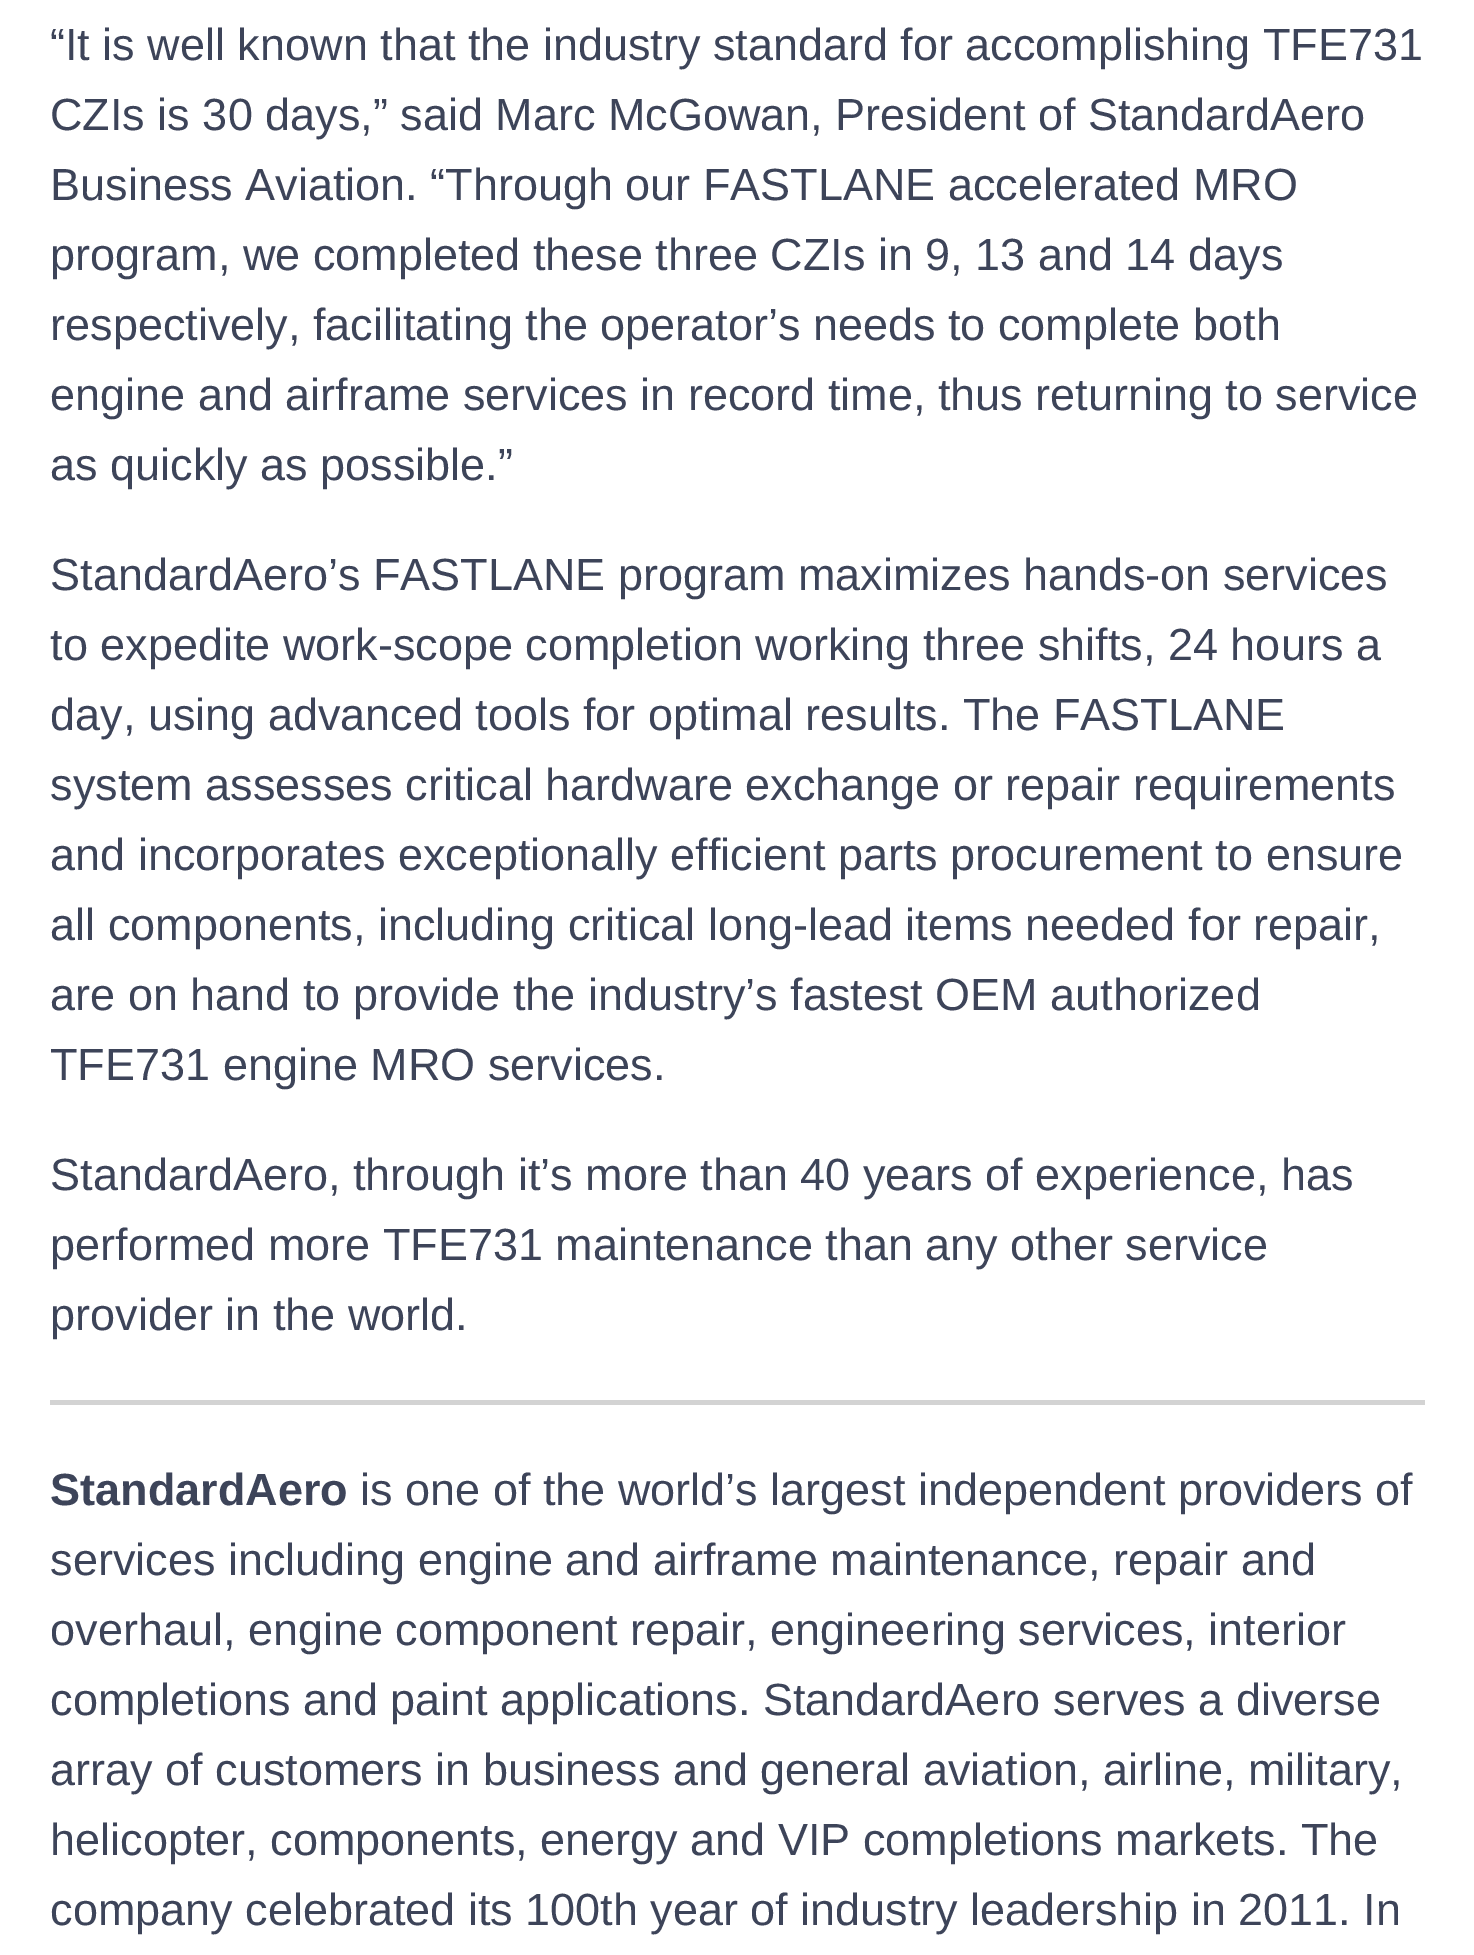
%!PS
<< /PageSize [1474 1955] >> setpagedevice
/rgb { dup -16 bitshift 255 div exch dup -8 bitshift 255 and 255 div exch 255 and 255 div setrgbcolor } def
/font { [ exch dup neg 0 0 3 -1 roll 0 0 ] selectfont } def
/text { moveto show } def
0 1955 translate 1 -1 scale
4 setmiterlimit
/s1 { /LiberationSans-Regular 45 font 16#3D4459 rgb } def
/s2 { /LiberationSans-Bold 45 font 16#3D4459 rgb } def
16#FFFFFF rgb
0 0 1474 1955 rectfill
s1
(“It is well known that the industry standard for accomplishing TFE731) 50 60 text
(CZIs is 30 days,” said Marc McGowan, President of StandardAero) 50 130 text
(Business Aviation. “Through our FASTLANE accelerated MRO) 50 200 text
(program, we completed these three CZIs in 9, 13 and 14 days) 50 270 text
(respectively, facilitating the operator’s needs to complete both) 50 340 text
(engine and airframe services in record time, thus returning to service) 50 410 text
(as quickly as possible.”) 50 480 text
(StandardAero’s FASTLANE program maximizes hands-on services) 50 590 text
(to expedite work-scope completion working three shifts, 24 hours a) 50 660 text
(day, using advanced tools for optimal results. The FASTLANE) 50 730 text
(system assesses critical hardware exchange or repair requirements) 50 800 text
(and incorporates exceptionally efficient parts procurement to ensure) 50 870 text
(all components, including critical long-lead items needed for repair,) 50 940 text
(are on hand to provide the industry’s fastest OEM authorized) 50 1010 text
(TFE731 engine MRO services.) 50 1080 text
(StandardAero, through it’s more than 40 years of experience, has) 50 1190 text
(performed more TFE731 maintenance than any other service) 50 1260 text
(provider in the world.) 50 1330 text
16#D3D3D3 rgb
50 1400 1375 5 rectfill
s2
(StandardAero) 50 1505 text
s1
(is one of the world’s largest independent providers of) 360 1505 text
(services including engine and airframe maintenance, repair and) 50 1575 text
(overhaul, engine component repair, engineering services, interior) 50 1645 text
(completions and paint applications. StandardAero serves a diverse) 50 1715 text
(array of customers in business and general aviation, airline, military,) 50 1785 text
(helicopter, components, energy and VIP completions markets. The) 50 1855 text
(company celebrated its 100th year of industry leadership in 2011. In) 50 1925 text
showpage
